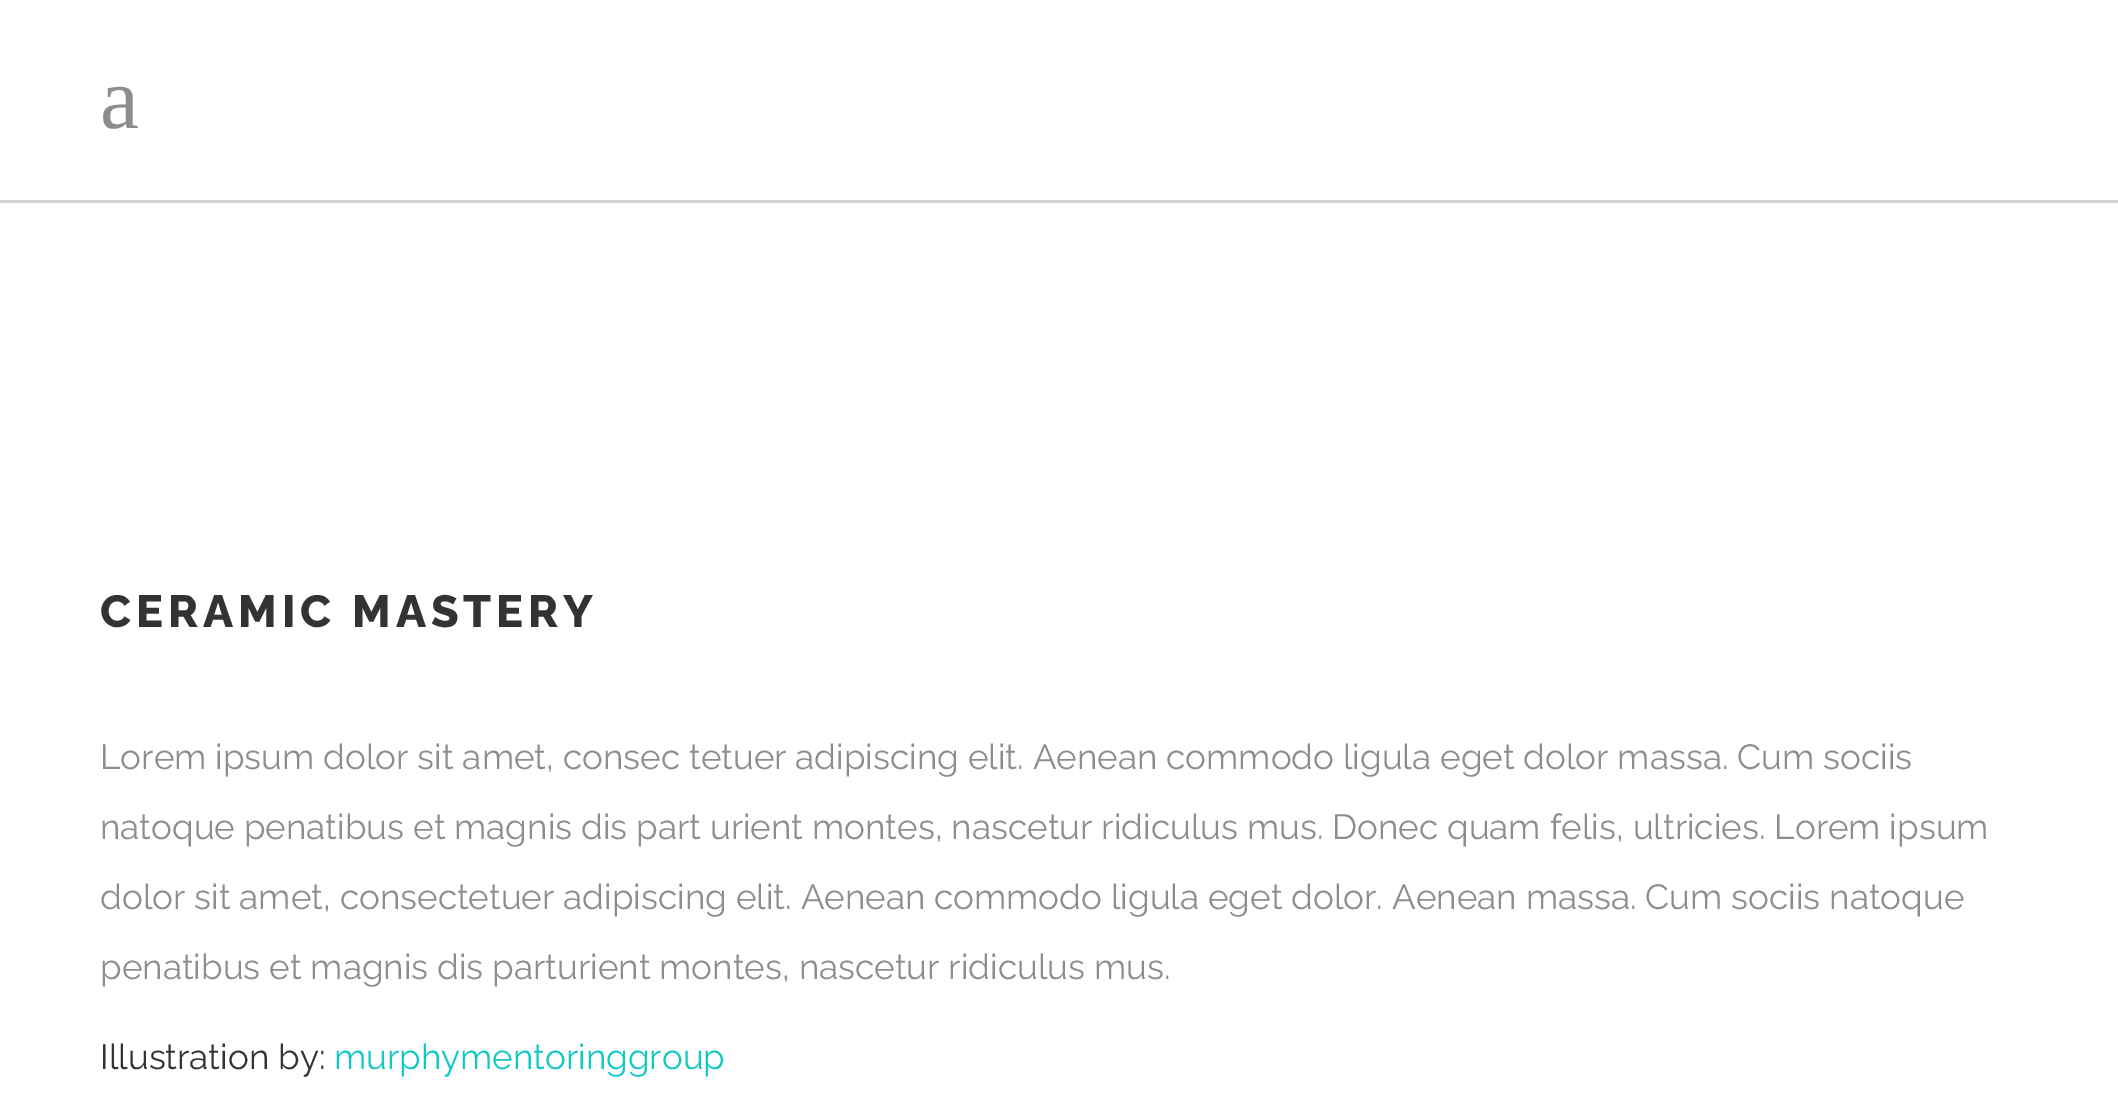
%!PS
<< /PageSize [2118 1105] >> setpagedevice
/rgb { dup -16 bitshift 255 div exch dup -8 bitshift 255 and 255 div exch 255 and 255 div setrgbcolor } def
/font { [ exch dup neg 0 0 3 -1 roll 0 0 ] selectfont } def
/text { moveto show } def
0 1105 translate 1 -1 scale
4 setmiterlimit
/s1 { /LiberationSerif-Regular 88 font 16#8D8D8D rgb } def
/s2 { /Raleway-Regular 35 font 16#8D8D8D rgb } def
/s3 { /Raleway-Regular 35 font 16#333333 rgb } def
/s4 { /Raleway-Regular 35 font 16#10C9C3 rgb } def
16#FFFFFF rgb
0 0 2118 1105 rectfill
16#D4D4D4 rgb
0 200 2118 3 rectfill
s1
(a) 100 128 text
/Raleway-ExtraBold 45 font
16#333333 rgb
100 627 moveto 5 0 (CERAMIC MASTERY) ashow
s2
(Lorem ipsum dolor sit amet, consec tetuer adipiscing elit. Aenean commodo ligula eget dolor massa. Cum sociis) 100 769 text
(natoque penatibus et magnis dis part urient montes, nascetur ridiculus mus. Donec quam felis, ultricies. Lorem ipsum) 100 839 text
(dolor sit amet, consectetuer adipiscing elit. Aenean commodo ligula eget dolor. Aenean massa. Cum sociis natoque) 100 909 text
(penatibus et magnis dis parturient montes, nascetur ridiculus mus.) 100 979 text
s3
(Illustration by:) 100 1069 text
s4
(murphymentoringgroup) 334 1069 text
showpage
